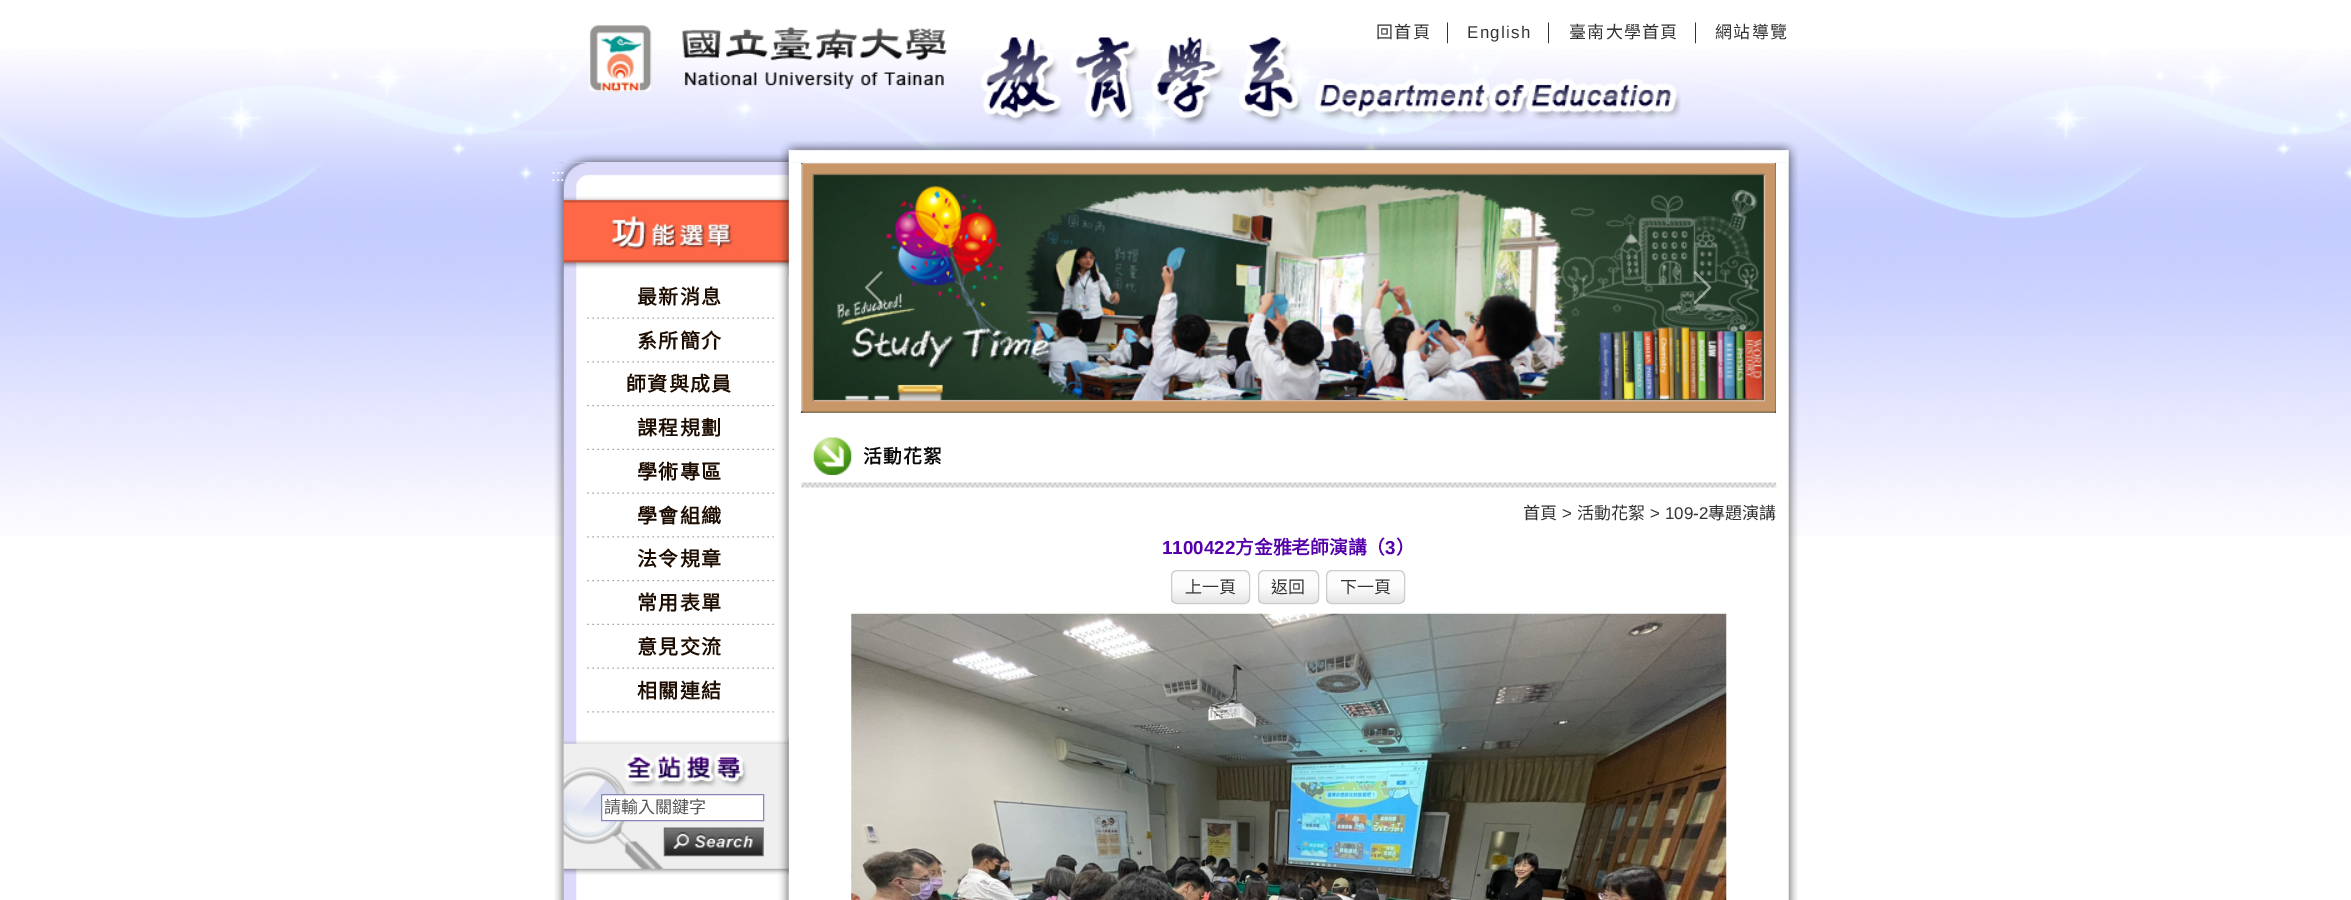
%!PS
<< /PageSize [2351 900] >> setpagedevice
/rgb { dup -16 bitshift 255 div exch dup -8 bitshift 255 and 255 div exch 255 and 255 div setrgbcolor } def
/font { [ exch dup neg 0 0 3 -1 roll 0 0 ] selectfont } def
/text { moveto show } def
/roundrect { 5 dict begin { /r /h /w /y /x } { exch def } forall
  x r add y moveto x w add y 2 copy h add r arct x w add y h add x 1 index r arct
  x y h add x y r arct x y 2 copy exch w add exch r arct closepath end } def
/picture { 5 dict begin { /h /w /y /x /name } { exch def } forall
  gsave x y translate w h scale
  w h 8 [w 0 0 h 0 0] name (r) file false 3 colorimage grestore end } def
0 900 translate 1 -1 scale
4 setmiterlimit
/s1 { /LiberationSans-Regular 17 font 16#FFFFFF rgb } def
/s2 { /NotoSansCJKTC-Regular 17 font 16#555555 rgb } def
/s3 { /NotoSansCJKTC-Regular 17 font 16#333333 rgb } def
/s4 { /LiberationSans-Regular 17 font 16#333333 rgb } def
/s5 { /LiberationSans-Bold 18.75 font 16#5500AA rgb } def
/s6 { /NotoSansCJKTC-Bold 18.75 font 16#5500AA rgb } def
16#FFFFFF rgb
0 0 2351 900 rectfill
(pic1.raw) 0 49 2351 487 picture
(pic2.raw) 589 25 1092 100 picture
/NotoSansCJKTC-Regular 17 font
16#333333 rgb
1376 38 moveto 1.25 0 (回首頁) ashow
/LiberationSans-Regular 17 font
1443 38 moveto 1.25 0 (│) ashow
1467 38 moveto 1.25 0 (English) ashow
1544 38 moveto 1.25 0 (│) ashow
/NotoSansCJKTC-Regular 17 font
1569 38 moveto 1.25 0 (臺南大學首頁) ashow
/LiberationSans-Regular 17 font
1691 38 moveto 1.25 0 (│) ashow
/NotoSansCJKTC-Regular 17 font
1715 38 moveto 1.25 0 (網站導覽) ashow
(pic3.raw) 567 141 1231 22 picture
(pic4.raw) 554 162 1244 738 picture
(pic5.raw) 553 162 236 113 picture
s1
(:::) 551 181 text
(pic6.raw) 587 317 187 2 picture
/NotoSansCJKTC-Bold 20 font
16#1D0C00 rgb
637 304 moveto 1.25 0 (最新消息) ashow
(pic7.raw) 587 361 187 2 picture
637 348 moveto 1.25 0 (系所簡介) ashow
(pic8.raw) 587 405 187 2 picture
626 391 moveto 1.25 0 (師資與成員) ashow
(pic9.raw) 587 448 187 2 picture
637 435 moveto 1.25 0 (課程規劃) ashow
(pic6.raw) 587 492 187 2 picture
637 479 moveto 1.25 0 (學術專區) ashow
(pic7.raw) 587 536 187 2 picture
637 523 moveto 1.25 0 (學會組織) ashow
(pic8.raw) 587 580 187 2 picture
637 566 moveto 1.25 0 (法令規章) ashow
(pic9.raw) 587 623 187 2 picture
637 610 moveto 1.25 0 (常用表單) ashow
(pic6.raw) 587 667 187 2 picture
637 654 moveto 1.25 0 (意見交流) ashow
(pic7.raw) 587 711 187 2 picture
637 698 moveto 1.25 0 (相關連結) ashow
(pic10.raw) 563 737 226 138 picture
16#FFFFFF rgb
601.5 794.5 moveto 763.5 794.5 lineto 763.5 820.5 lineto 601.5 820.5 lineto closepath gsave fill grestore
16#8886BA rgb
stroke
s2
(請輸入關鍵字) 604 813 text
(pic11.raw) 663 827 101 30 picture
(pic12.raw) 801 163 975 250 picture
(pic13.raw) 865 271 18 33 picture
(pic14.raw) 1693 271 19 33 picture
(pic15.raw) 801 482 976 6 picture
(pic16.raw) 813 437 39 38 picture
/NotoSansCJKTC-Bold 18.75 font
16#0A0A0A rgb
863 463 moveto 1.25 0 (活動花絮) ashow
s3
(首頁) 1523 519 text
s4
(>) 1562 519 text
s3
(活動花絮) 1577 519 text
s4
(> 109-2) 1650 519 text
s3
(專題演講) 1708 519 text
s5
(1100422) 1162 554 text
s6
(方金雅老師演講（) 1235 554 text
s5
(3) 1385 554 text
s6
(）) 1396 554 text
gsave
1171 570 79 34 6 roundrect clip newpath
gsave 1171 571 moveto 1250 571 lineto 1250 603 lineto 1171 603 lineto closepath clip newpath
<< /ShadingType 2 /ColorSpace /DeviceRGB /Coords [1211 571 1211 603] /Extend [true true] /Function << /FunctionType 3 /Domain [0 1] /Functions [<< /FunctionType 2 /Domain [0 1] /C0 [0.988 0.988 0.988] /C1 [0.988 0.988 0.988] /N 1 >> << /FunctionType 2 /Domain [0 1] /C0 [0.988 0.988 0.988] /C1 [0.898 0.898 0.898] /N 1 >>] /Bounds [0.5] /Encode [0 1 0 1] >> >> shfill grestore
grestore
16#CCCCCC rgb
1171.5 570.5 78 33 5.5 roundrect stroke
s3
(上一頁) 1185 593 text
gsave
1258 570 61 34 6 roundrect clip newpath
gsave 1258 571 moveto 1319 571 lineto 1319 603 lineto 1258 603 lineto closepath clip newpath
<< /ShadingType 2 /ColorSpace /DeviceRGB /Coords [1288 571 1288 603] /Extend [true true] /Function << /FunctionType 3 /Domain [0 1] /Functions [<< /FunctionType 2 /Domain [0 1] /C0 [0.988 0.988 0.988] /C1 [0.988 0.988 0.988] /N 1 >> << /FunctionType 2 /Domain [0 1] /C0 [0.988 0.988 0.988] /C1 [0.898 0.898 0.898] /N 1 >>] /Bounds [0.5] /Encode [0 1 0 1] >> >> shfill grestore
grestore
16#CCCCCC rgb
1258.5 570.5 60 33 5.5 roundrect stroke
s3
(返回) 1271 593 text
gsave
1326 570 79 34 6 roundrect clip newpath
gsave 1326 571 moveto 1405 571 lineto 1405 603 lineto 1326 603 lineto closepath clip newpath
<< /ShadingType 2 /ColorSpace /DeviceRGB /Coords [1366 571 1366 603] /Extend [true true] /Function << /FunctionType 3 /Domain [0 1] /Functions [<< /FunctionType 2 /Domain [0 1] /C0 [0.988 0.988 0.988] /C1 [0.988 0.988 0.988] /N 1 >> << /FunctionType 2 /Domain [0 1] /C0 [0.988 0.988 0.988] /C1 [0.898 0.898 0.898] /N 1 >>] /Bounds [0.5] /Encode [0 1 0 1] >> >> shfill grestore
grestore
16#CCCCCC rgb
1326.5 570.5 78 33 5.5 roundrect stroke
s3
(下一頁) 1340 593 text
(pic17.raw) 851 613 876 287 picture
showpage
